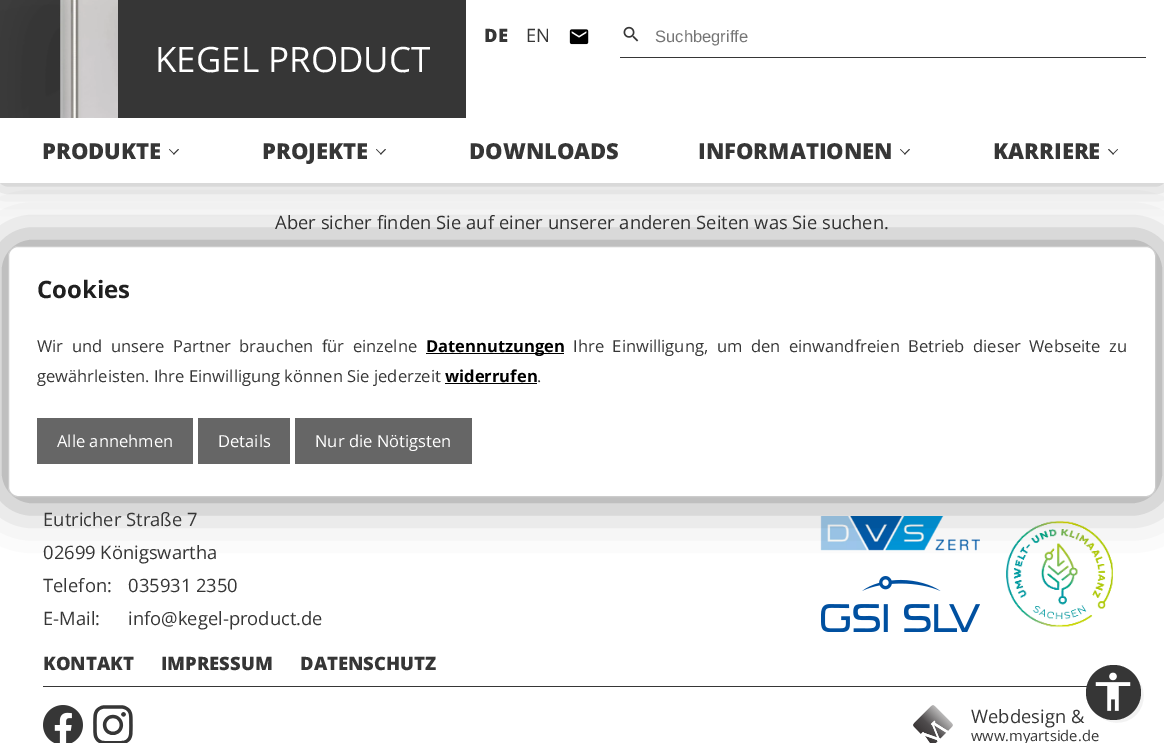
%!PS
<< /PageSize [1164 743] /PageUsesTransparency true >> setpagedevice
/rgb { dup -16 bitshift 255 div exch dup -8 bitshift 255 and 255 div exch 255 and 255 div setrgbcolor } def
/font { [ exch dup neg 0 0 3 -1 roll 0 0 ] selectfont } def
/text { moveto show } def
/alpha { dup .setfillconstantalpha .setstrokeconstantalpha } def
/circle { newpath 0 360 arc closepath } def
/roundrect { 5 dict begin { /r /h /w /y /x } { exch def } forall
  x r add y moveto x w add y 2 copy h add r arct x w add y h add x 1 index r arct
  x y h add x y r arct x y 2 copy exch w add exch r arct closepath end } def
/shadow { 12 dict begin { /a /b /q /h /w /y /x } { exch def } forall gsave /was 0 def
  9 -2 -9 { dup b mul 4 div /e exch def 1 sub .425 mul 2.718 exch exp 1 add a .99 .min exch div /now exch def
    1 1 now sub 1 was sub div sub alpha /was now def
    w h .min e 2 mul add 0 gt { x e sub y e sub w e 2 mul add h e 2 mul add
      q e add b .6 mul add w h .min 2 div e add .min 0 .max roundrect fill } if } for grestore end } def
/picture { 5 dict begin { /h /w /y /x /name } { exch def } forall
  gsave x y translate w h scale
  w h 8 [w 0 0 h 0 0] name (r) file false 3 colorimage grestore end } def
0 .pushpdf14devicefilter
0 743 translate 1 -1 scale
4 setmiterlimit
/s1 { /OpenSans-ExtraBold 18.4 font 16#363636 rgb } def
/s2 { /OpenSans-Regular 18.4 font 16#363636 rgb } def
/s3 { /LiberationSans-Regular 16.55 font 16#757575 rgb } def
/s4 { /OpenSans-ExtraBold 22 font 16#363636 rgb } def
/s5 { /OpenSans-Regular 35 font 16#FFFFFF rgb } def
/s6 { /OpenSans-Bold 24 font 16#202020 rgb } def
/s7 { /OpenSans-Bold 16.55 font 16#000000 rgb } def
/s8 { /OpenSans-Regular 16.55 font 16#363636 rgb } def
/s9 { /OpenSans-Regular 16.55 font 16#FFFFFF rgb } def
/s10 { /OpenSans-Regular 14.75 font 16#363636 rgb } def
16#FFFFFF rgb
0 0 1164 743 rectfill
16#000000 rgb
0 0 1164 183 0 15 0.3 shadow
16#FFFFFF rgb
0 0 1164 183 rectfill
s1
(DE) 484 42 text
s2
(EN) 526 42 text
(pic1.raw) 569 29 20 16 picture
620 57 526 1 rectfill
(pic2.raw) 623 26 16 16 picture
s3
(Suchbegriffe) 655 42 text
s4
(PRODUKTE) 42 159 text
178 149 moveto 179 149.5 lineto 174 154.5 lineto 173 154 lineto closepath fill
169.5 149 moveto 174.5 154 lineto 174 154.5 lineto 169 149.5 lineto closepath fill
(PROJEKTE) 262 159 text
385 149 moveto 386 149.5 lineto 381 154.5 lineto 380 154 lineto closepath fill
376.5 149 moveto 381.5 154 lineto 381 154.5 lineto 376 149.5 lineto closepath fill
(DOWNLOADS) 469 159 text
(INFORMATIONEN) 698 159 text
909 149 moveto 910 149.5 lineto 905 154.5 lineto 904 154 lineto closepath fill
900.5 149 moveto 905.5 154 lineto 905 154.5 lineto 900 149.5 lineto closepath fill
(KARRIERE) 993 159 text
1117.5 149 moveto 1118 149.5 lineto 1113 154.5 lineto 1112.5 154 lineto closepath fill
1109 149 moveto 1114 154 lineto 1113 154.5 lineto 1108 149.5 lineto closepath fill
(pic3.raw) 0 0 118 118 picture
118 0 348 118 rectfill
s5
(KEGEL PRODUCT) 155 72 text
s2
(Aber sicher finden Sie auf einer unserer anderen Seiten was Sie suchen.) 275 229 text
(pic4.raw) 820 516 160 35 picture
(pic5.raw) 1006 520 107 108 picture
16#000000 rgb
8 246 1148 251 10 25 0.5 shadow
16#FFFFFF rgb
8.5 246.5 1147 250 9.5 roundrect gsave fill grestore
16#CCCCCC rgb
stroke
s6
(Cookies) 37 298 text
/OpenSans-Regular 16.55 font
16#363636 rgb
37 352 moveto 4.25 0 32 (Wir und unsere Partner brauchen für einzelne) widthshow
16#000000 rgb
426 353 138 1 rectfill
s7
(Datennutzungen) 426 352 text
/OpenSans-Regular 16.55 font
16#363636 rgb
573 352 moveto 4.25 0 32 (Ihre Einwilligung, um den einwandfreien Betrieb dieser Webseite zu) widthshow
(gewährleisten. Ihre Einwilligung können Sie jederzeit) 37 382 text
s7
(widerrufen) 445 382 text
445 383 92 1 rectfill
s8
(.) 537 382 text
16#666666 rgb
37 418 156 46 rectfill
s9
(Alle annehmen) 57 447 text
16#666666 rgb
198 418 92 46 rectfill
s9
(Details) 218 447 text
16#666666 rgb
295 418 177 46 rectfill
s9
(Nur die Nötigsten) 315 447 text
s2
(Eutricher Straße 7) 43 526 text
(02699 Königswartha) 43 559 text
(Telefon:) 43 592 text
(035931 2350) 128 592 text
(E-Mail:) 43 625 text
(info@kegel-product.de) 128 625 text
(pic6.raw) 821 576 159 56 picture
43 686 1044 1 rectfill
s1
(KONTAKT) 43 670 text
(IMPRESSUM) 161 670 text
(DATENSCHUTZ) 300 670 text
(pic7.raw) 43 705 40 38 picture
(pic8.raw) 93 705 40 38 picture
(pic9.raw) 913 705 40 38 picture
s2
(Webdesign &) 971 723 text
s10
(www.myartside.de) 971 741 text
0.05 alpha
16#000000 rgb
1096 713 moveto 1106 725 1125 726 1136 715 curveto 1147 704 1146 685 1134 675 curveto 1156 700 1121 735 1096 713 curveto closepath fill
1 alpha
16#363636 rgb
1113.5 692.5 27.5 circle fill
(pic10.raw) 1095 672 36 39 picture
.poppdf14devicefilter showpage
